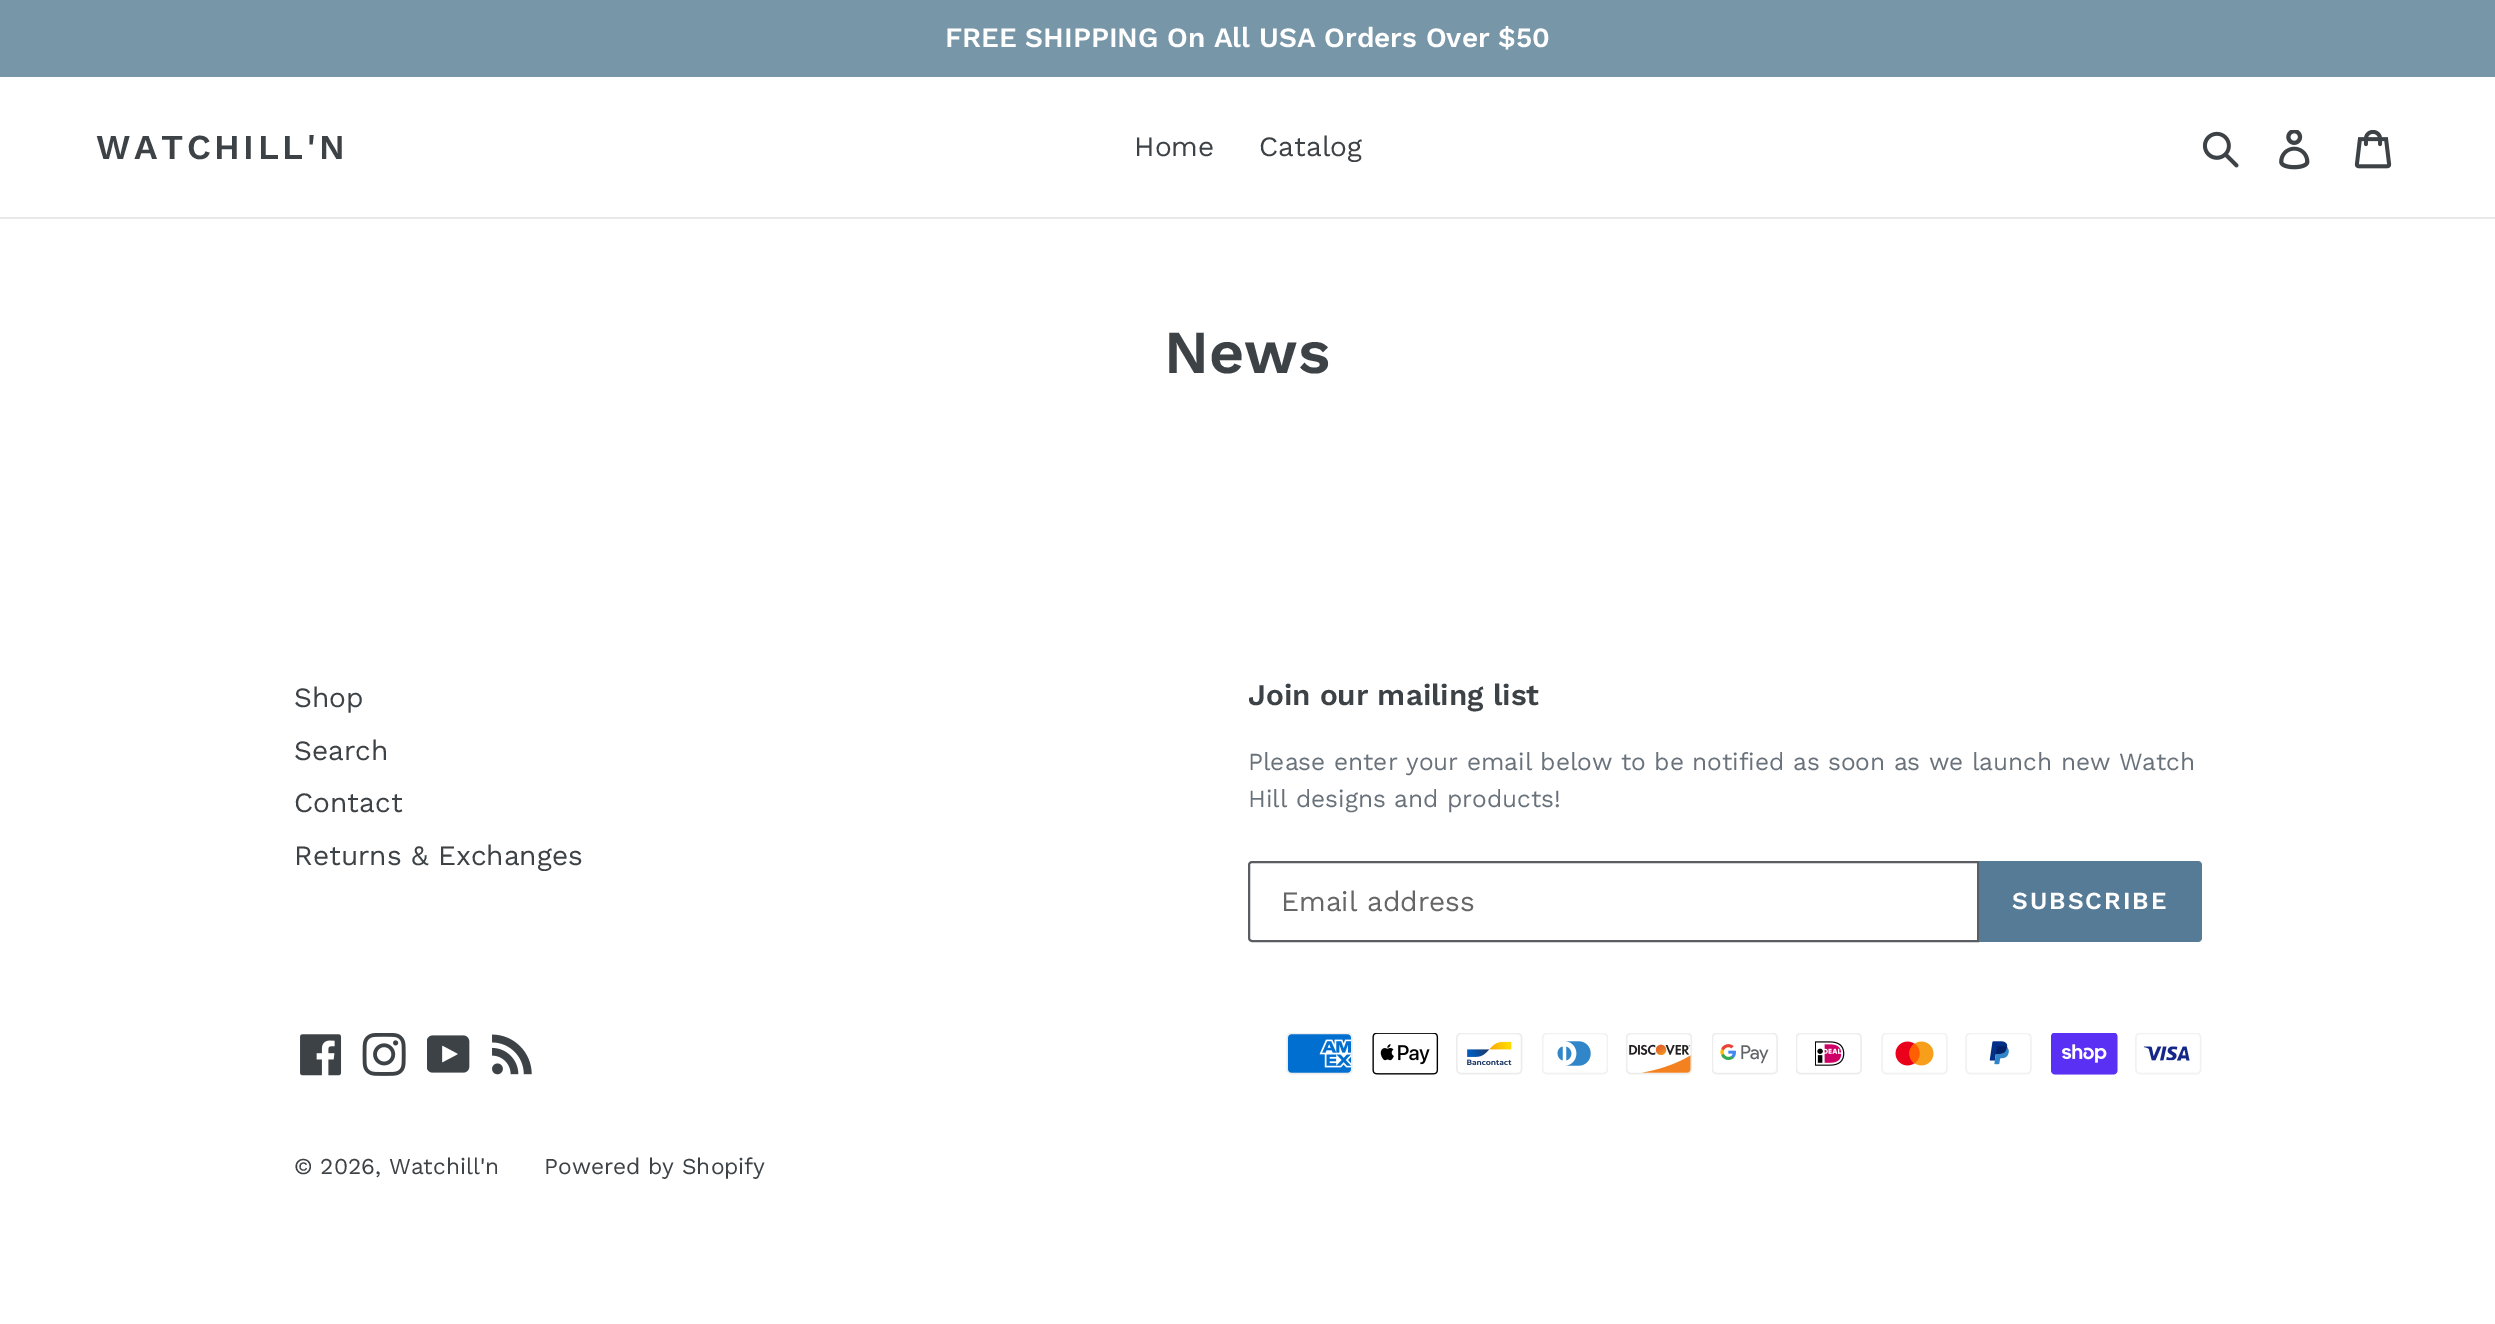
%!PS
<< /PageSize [2495 1324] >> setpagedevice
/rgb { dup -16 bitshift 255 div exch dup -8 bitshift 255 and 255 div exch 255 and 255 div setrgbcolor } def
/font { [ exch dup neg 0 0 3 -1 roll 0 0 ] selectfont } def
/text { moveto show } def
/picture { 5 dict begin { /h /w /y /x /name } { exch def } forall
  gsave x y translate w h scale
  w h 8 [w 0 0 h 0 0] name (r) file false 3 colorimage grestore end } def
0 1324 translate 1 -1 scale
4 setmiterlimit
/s1 { /WorkSans-SemiBold 28 font 16#FFFFFF rgb } def
/s2 { /WorkSans-Regular 28 font 16#3D4246 rgb } def
/s3 { /WorkSans-SemiBold 61 font 16#3D4246 rgb } def
/s4 { /WorkSans-SemiBold 29.75 font 16#3D4246 rgb } def
/s5 { /WorkSans-Regular 24.5 font 16#69727B rgb } def
/s6 { /WorkSans-Regular 28 font 16#666666 rgb } def
/s7 { /WorkSans-Regular 22.75 font 16#3D4246 rgb } def
16#FFFFFF rgb
0 0 2495 1324 rectfill
16#7796A8 rgb
0 0 2495 77 rectfill
s1
(FREE SHIPPING On All USA Orders Over $50) 945 47 text
16#E8E9EB rgb
0 217 2495 2 rectfill
/WorkSans-SemiBold 35 font
16#3D4246 rgb
96 159 moveto 3.5 0 (WATCHILL'N) ashow
s2
(Home) 1134 156 text
(Catalog) 1259 156 text
(pic1.raw) 2202 131 37 37 picture
(pic2.raw) 2279 130 31 40 picture
(pic3.raw) 2354 130 38 39 picture
s3
(News) 1164 373 text
s2
(Shop) 294 707 text
(Search) 294 760 text
(Contact) 294 812 text
(Returns & Exchanges) 294 865 text
s4
(Join our mailing list) 1248 705 text
s5
(Please enter your email below to be notified as soon as we launch new Watch) 1248 770 text
(Hill designs and products!) 1248 807 text
16#5A5E62 rgb
2 setlinewidth
1252 862 moveto 1978 862 lineto 1978 941 lineto 1252 941 lineto 1250.5 941 1249 939.5 1249 938 curveto 1249 865 lineto 1249 863.5 1250.5 862 1252 862 curveto closepath stroke
s6
(Email address) 1281 911 text
16#557B97 rgb
1979 861 moveto 2198 861 lineto 2200 861 2202 863 2202 865 curveto 2202 938 lineto 2202 940 2200 942 2198 942 curveto 1979 942 lineto closepath fill
/WorkSans-SemiBold 24.5 font
16#FFFFFF rgb
2012 909 moveto 2 0 (SUBSCRIBE) ashow
(pic4.raw) 300 1034 42 42 picture
(pic5.raw) 362 1033 44 43 picture
(pic6.raw) 427 1035 43 38 picture
(pic7.raw) 492 1034 40 41 picture
(pic8.raw) 1286 1033 67 42 picture
(pic9.raw) 1372 1033 67 42 picture
(pic10.raw) 1456 1033 67 42 picture
(pic11.raw) 1542 1033 66 42 picture
(pic12.raw) 1626 1033 66 42 picture
(pic13.raw) 1712 1033 66 42 picture
(pic14.raw) 1796 1033 66 42 picture
(pic15.raw) 1881 1033 67 42 picture
(pic16.raw) 1965 1033 67 42 picture
(pic17.raw) 2051 1033 67 42 picture
(pic18.raw) 2135 1033 67 42 picture
s7
(© 2026, Watchill'n) 294 1174 text
(Powered by Shopify) 544 1174 text
showpage
